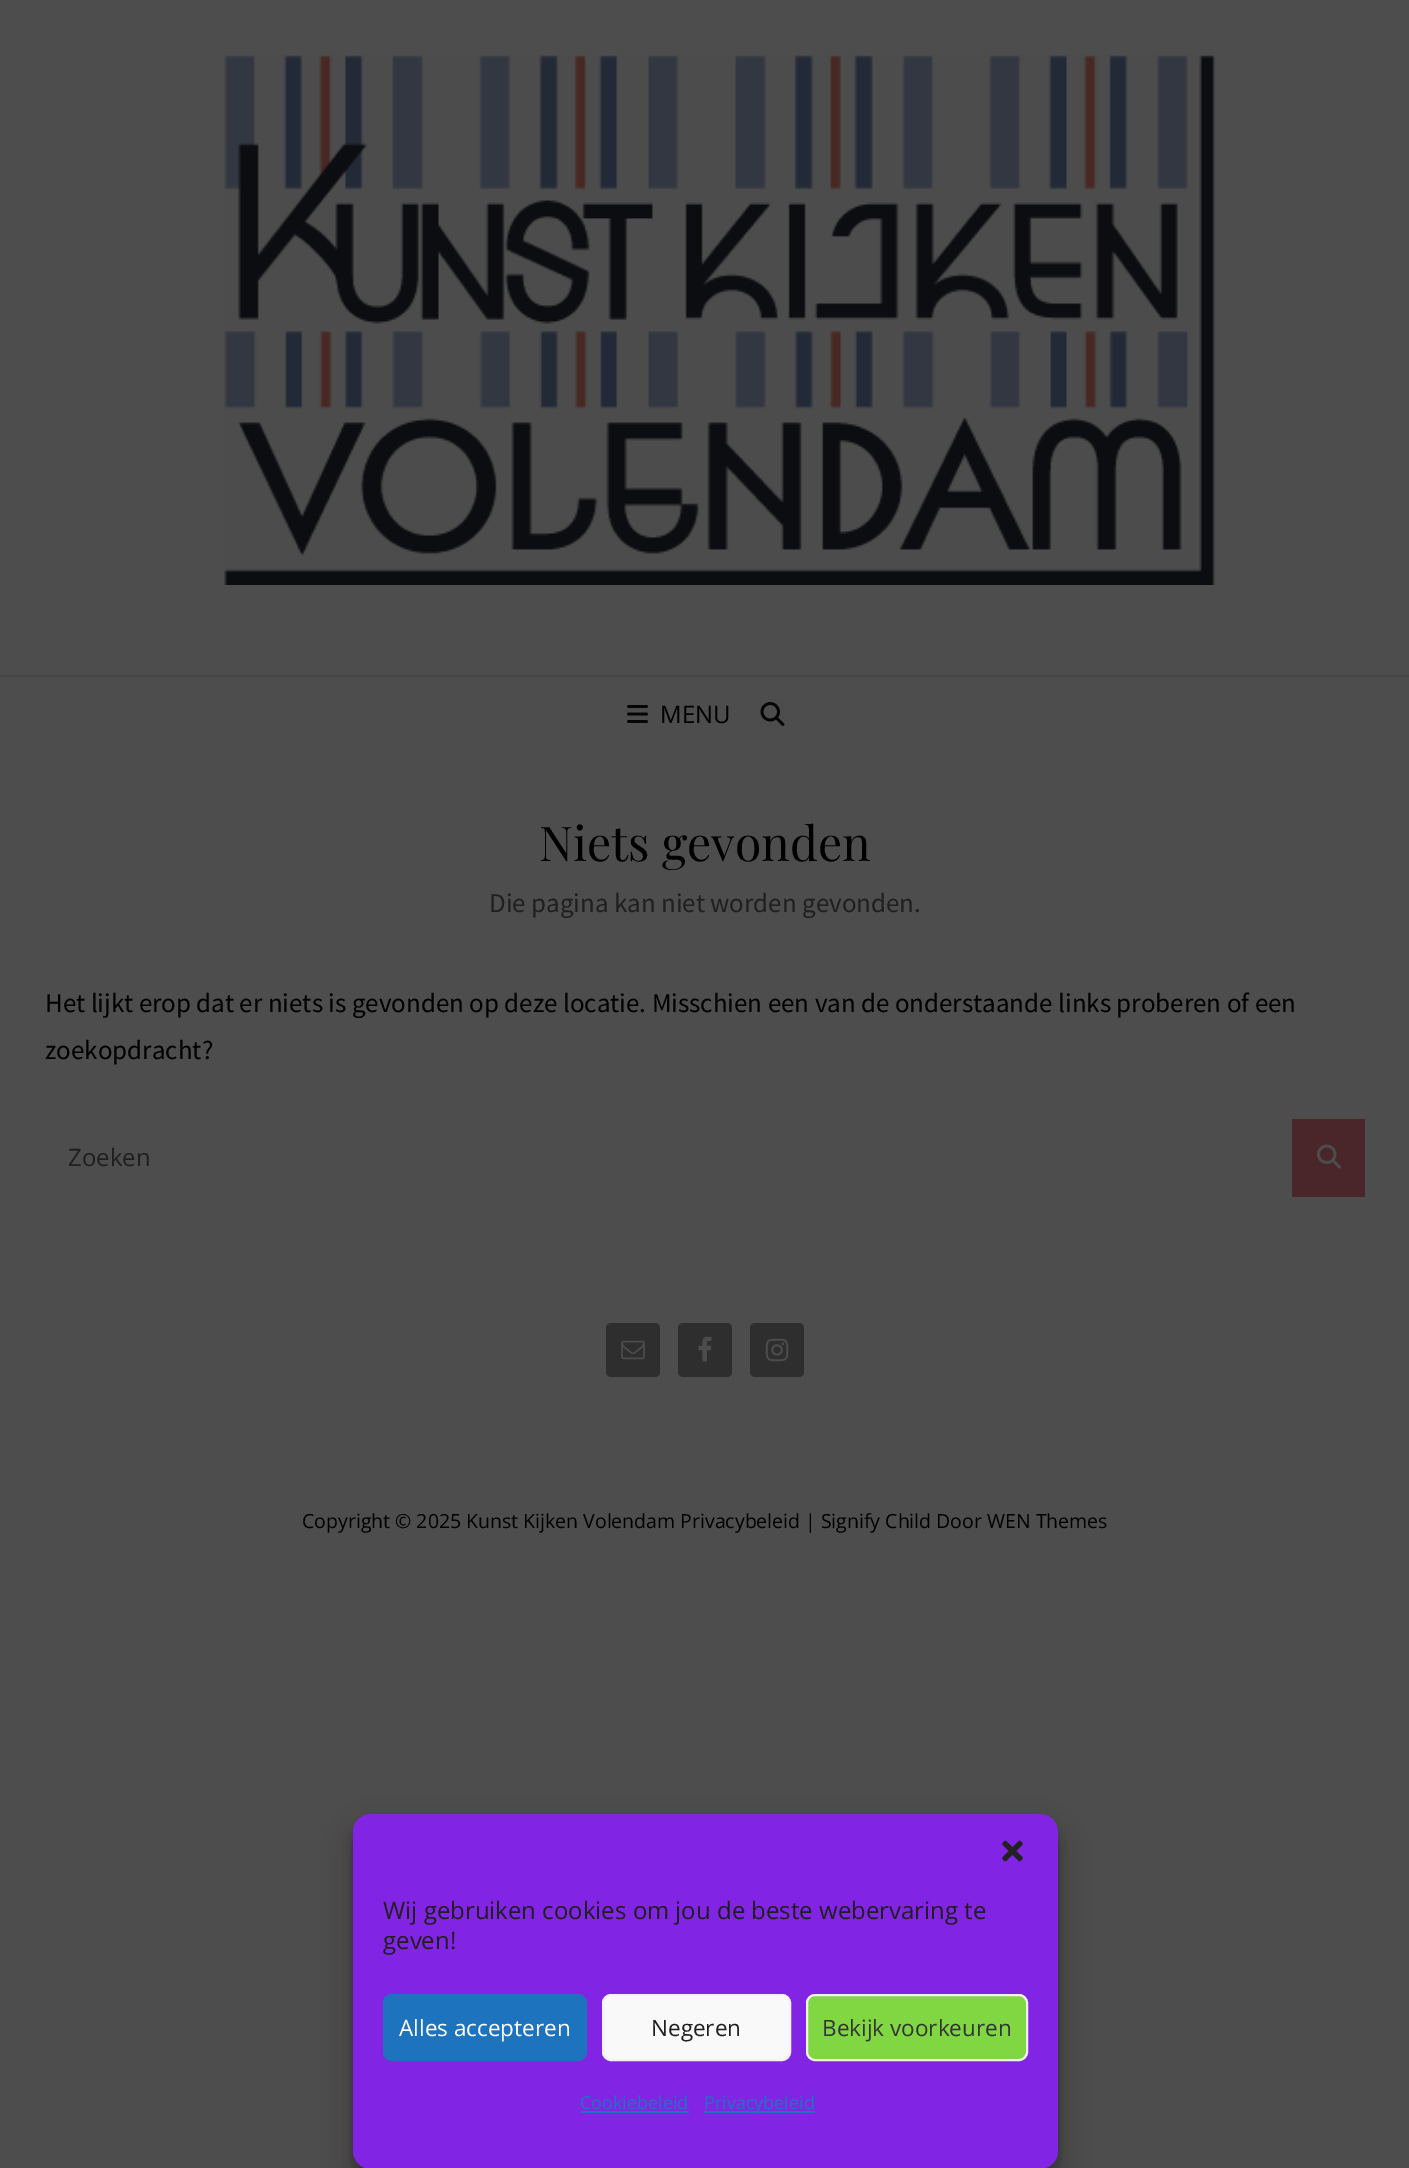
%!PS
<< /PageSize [1409 2168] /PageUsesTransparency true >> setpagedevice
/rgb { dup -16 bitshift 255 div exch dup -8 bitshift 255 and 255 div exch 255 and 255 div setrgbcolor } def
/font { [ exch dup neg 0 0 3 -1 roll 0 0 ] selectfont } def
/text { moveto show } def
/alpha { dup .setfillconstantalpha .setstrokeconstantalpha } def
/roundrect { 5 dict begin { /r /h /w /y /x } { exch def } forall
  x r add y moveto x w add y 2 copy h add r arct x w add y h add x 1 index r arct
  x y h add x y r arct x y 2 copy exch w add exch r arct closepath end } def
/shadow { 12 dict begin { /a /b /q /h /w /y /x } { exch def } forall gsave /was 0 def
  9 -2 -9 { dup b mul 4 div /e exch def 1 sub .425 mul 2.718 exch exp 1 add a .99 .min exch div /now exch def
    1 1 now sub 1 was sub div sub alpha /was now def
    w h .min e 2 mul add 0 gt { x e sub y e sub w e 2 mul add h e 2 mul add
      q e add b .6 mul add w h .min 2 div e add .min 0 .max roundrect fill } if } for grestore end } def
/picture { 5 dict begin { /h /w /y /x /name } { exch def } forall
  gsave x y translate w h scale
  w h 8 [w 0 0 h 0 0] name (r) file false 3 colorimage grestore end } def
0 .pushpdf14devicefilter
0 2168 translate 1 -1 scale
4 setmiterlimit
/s1 { /OpenSans-Regular 24 font 16#000000 rgb } def
/s2 { /PlayfairDisplay-Regular 48 font 16#000000 rgb } def
/s3 { /SourceSansPro-Regular 27 font 16#1F1F1F rgb } def
/s4 { /SourceSansPro-Regular 27 font 16#000000 rgb } def
/s5 { /OpenSans-Regular 24 font 16#1F1F1F rgb } def
/s6 { /OpenSans-Regular 19.5 font 16#000000 rgb } def
/s7 { /OpenSans-Regular 22.5 font 16#FFFFFF rgb } def
/s8 { /OpenSans-Regular 22.5 font 16#1F1F1F rgb } def
/s9 { /OpenSans-Regular 22.5 font 16#333333 rgb } def
/s10 { /OpenSans-Regular 18 font 16#1E73BE rgb } def
16#4D4D4D rgb
0 0 1409 2168 rectfill
(pic1.raw) 224 55 991 530 picture
16#454545 rgb
0 675 1409 2 rectfill
(pic2.raw) 627 705 21 18 picture
s1
(MENU) 660 723 text
(pic3.raw) 760 702 25 24 picture
s2
(Niets gevonden) 539 861 text
s3
(Die pagina kan niet worden gevonden.) 489 912 text
s4
(Het lijkt erop dat er niets is gevonden op deze locatie. Misschien een van de onderstaande links proberen of een) 45 1012 text
(zoekopdracht?) 45 1059 text
s5
(Zoeken) 68 1166 text
16#4A262A rgb
1292 1119 73 78 rectfill
(pic4.raw) 1317 1144 24 25 picture
16#2E2E2E rgb
606 1323 54 54 5 roundrect fill
(pic5.raw) 621 1340 24 20 picture
678 1323 54 54 5 roundrect fill
(pic6.raw) 698 1336 14 26 picture
750 1323 54 54 5 roundrect fill
(pic7.raw) 765 1338 24 24 picture
s6
(Copyright © 2025) 302 1528 text
(Kunst Kijken Volendam Privacybeleid) 466 1528 text
(| Signify Child Door) 805 1528 text
(WEN Themes) 987 1528 text
353 1823 705 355 18 4.5 0.23 shadow
353 1829 705 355 18 15 0.19 shadow
16#8224E3 rgb
353 1814 705 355 18 roundrect fill
(pic8.raw) 1002 1840 21 22 picture
s5
(Wij gebruiken cookies om jou de beste webervaring te) 383 1919 text
(geven!) 383 1949 text
16#1E73BE rgb
384 1995 202 65 8 roundrect gsave fill grestore
2 setlinewidth
stroke
s7
(Alles accepteren) 399 2036 text
16#F9F9F9 rgb
603 1995 187 65 8 roundrect gsave fill grestore
16#F2F2F2 rgb
stroke
s8
(Negeren) 651 2036 text
16#81D742 rgb
807 1995 220 65 8 roundrect gsave fill grestore
16#F2F2F2 rgb
stroke
s9
(Bekijk voorkeuren) 822 2036 text
s10
(Cookiebeleid) 580 2109 text
581 2111 108 2 rectfill
704 2111 111 2 rectfill
(Privacybeleid) 704 2109 text
.poppdf14devicefilter showpage
